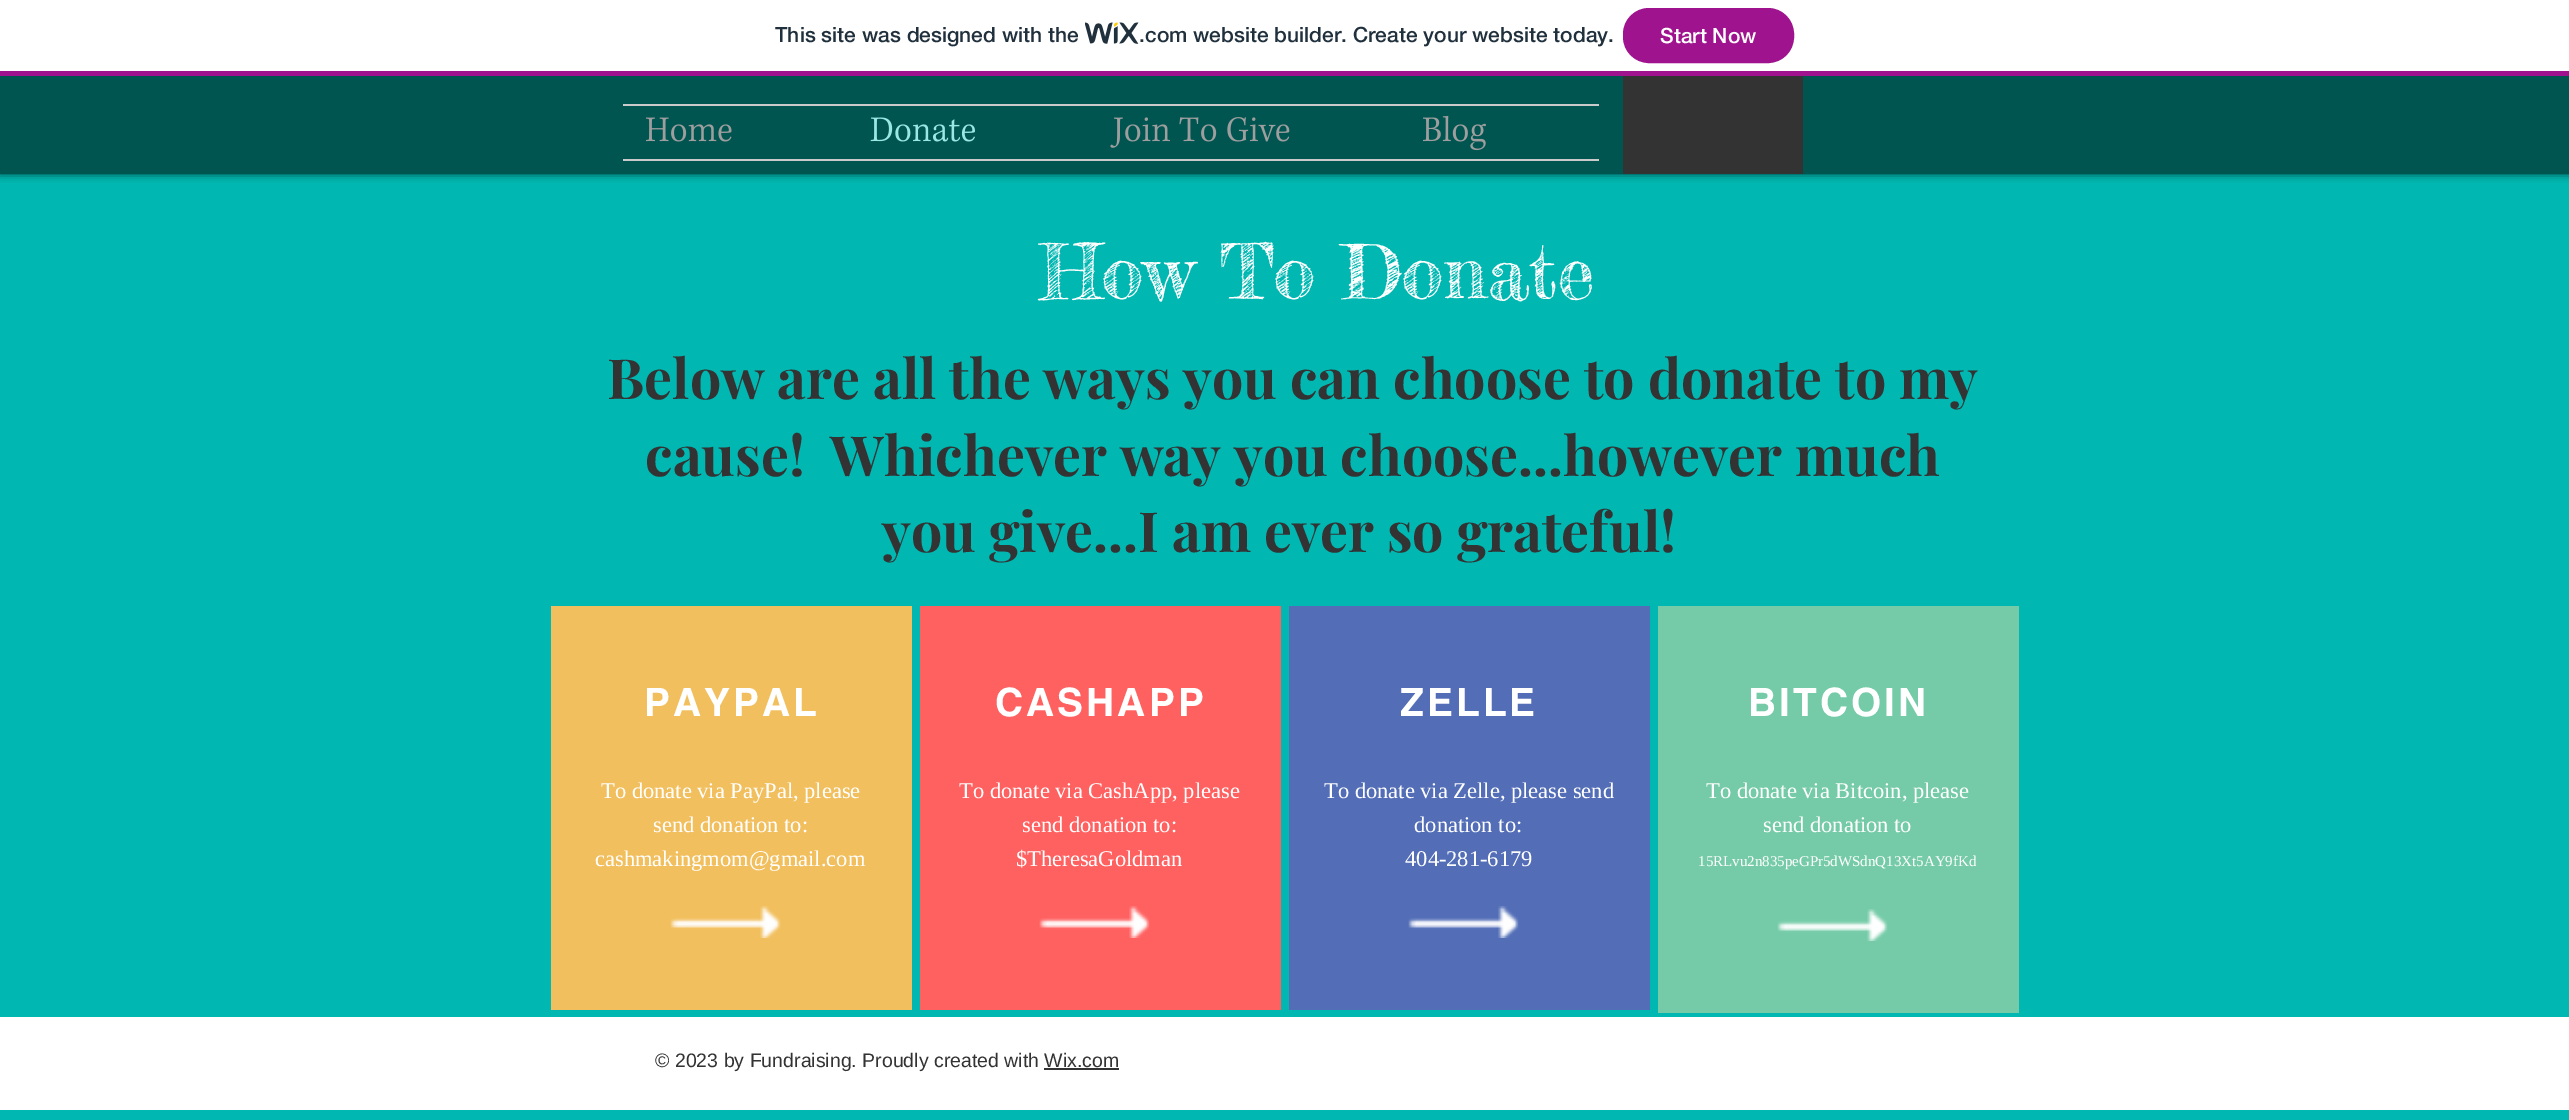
%!PS
<< /PageSize [2569 1120] /PageUsesTransparency true >> setpagedevice
/rgb { dup -16 bitshift 255 div exch dup -8 bitshift 255 and 255 div exch 255 and 255 div setrgbcolor } def
/font { [ exch dup neg 0 0 3 -1 roll 0 0 ] selectfont } def
/text { moveto show } def
/alpha { dup .setfillconstantalpha .setstrokeconstantalpha } def
/roundrect { 5 dict begin { /r /h /w /y /x } { exch def } forall
  x r add y moveto x w add y 2 copy h add r arct x w add y h add x 1 index r arct
  x y h add x y r arct x y 2 copy exch w add exch r arct closepath end } def
/shadow { 12 dict begin { /a /b /q /h /w /y /x } { exch def } forall gsave /was 0 def
  9 -2 -9 { dup b mul 4 div /e exch def 1 sub .425 mul 2.718 exch exp 1 add a .99 .min exch div /now exch def
    1 1 now sub 1 was sub div sub alpha /was now def
    w h .min e 2 mul add 0 gt { x e sub y e sub w e 2 mul add h e 2 mul add
      q e add b .6 mul add w h .min 2 div e add .min 0 .max roundrect fill } if } for grestore end } def
/picture { 5 dict begin { /h /w /y /x /name } { exch def } forall
  gsave x y translate w h scale
  w h 8 [w 0 0 h 0 0] name (r) file false 3 colorimage grestore end } def
0 .pushpdf14devicefilter
0 1120 translate 1 -1 scale
4 setmiterlimit
/s1 { /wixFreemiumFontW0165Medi-Medium 21 font 16#20303C rgb } def
/s2 { /wixFreemiumFontW0165Medi-Medium 21 font 16#FFFFFF rgb } def
/s3 { /FrederickatheGreat-Regular 75 font 16#FFFFFF rgb } def
/s4 { /PlayfairDisplay-Bold 55.5 font 16#333333 rgb } def
/s5 { /LiberationSerif-Regular 22.5 font 16#FFFFFF rgb } def
/s6 { /LiberationSerif-Regular 15 font 16#FFFFFF rgb } def
/s7 { /LiberationSans-Regular 19.5 font 16#333333 rgb } def
16#00B7B1 rgb
0 0 2569 1120 rectfill
16#000000 rgb
0 75 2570 99 0 4 0.7 shadow
16#FFFFFF rgb
0 0 2569 71 rectfill
16#A0138E rgb
0 71 2569 5 rectfill
s1
(This site was designed with the) 775 42 text
(pic1.raw) 1085 22 54 22 picture
(.com website builder. Create your website today.) 1139 42 text
16#A0138E rgb
1624 9 169 53 25 roundrect gsave fill grestore
2 setlinewidth
stroke
s2
(Start Now) 1660 43 text
16#005551 rgb
0 76 2569 98 rectfill
16#CACACA rgb
623 104 976 2 rectfill
623 159 976 2 rectfill
(pic2.raw) 646 117 86 25 picture
(pic3.raw) 870 117 105 25 picture
(pic4.raw) 1110 117 180 31 picture
(pic5.raw) 1423 115 63 36 picture
16#333333 rgb
1623 76 180 98 rectfill
s3
(How To Donate) 1040 299 text
s4
(Below are all the ways you can choose to donate to my) 607 399 text
(cause!  Whichever way you choose...however much) 645 476 text
(you give...I am ever so grateful!) 882 552 text
16#F2BF5E rgb
551 606 361 404 rectfill
/helvetica-Bold 39 font
16#FFFFFF rgb
644 716 moveto 3 0 (PAYPAL) ashow
s5
(To donate via PayPal, please) 601 798 text
(send donation to:) 653 832 text
(cashmakingmom@gmail.com) 595 866 text
(pic6.raw) 670 906 111 32 picture
16#FF6161 rgb
920 606 361 404 rectfill
/helvetica-Bold 39 font
16#FFFFFF rgb
995 716 moveto 3 0 (CASHAPP) ashow
s5
(To donate via CashApp, please) 959 798 text
(send donation to:) 1022 832 text
($TheresaGoldman) 1016 866 text
(pic7.raw) 1039 906 111 32 picture
16#536EB7 rgb
1289 606 361 404 rectfill
/helvetica-Bold 39 font
16#FFFFFF rgb
1400 716 moveto 3 0 (ZELLE) ashow
s5
(To donate via Zelle, please send) 1324 798 text
(donation to:) 1414 832 text
(404-281-6179) 1405 866 text
(pic8.raw) 1408 906 111 32 picture
16#75CBA8 rgb
1658 606 361 407 rectfill
/helvetica-Bold 39 font
16#FFFFFF rgb
1748 716 moveto 3 0 (BITCOIN) ashow
s5
(To donate via Bitcoin, please) 1706 798 text
(send donation to) 1763 832 text
s6
(15RLvu2n835peGPr5dWSdnQ13Xt5AY9fKd) 1698 866 text
(pic9.raw) 1777 909 111 32 picture
0 1017 2569 93 rectfill
s7
(© 2023 by Fundraising. Proudly created with Wix.com) 655 1067 text
1044 1068 75 2 rectfill
.poppdf14devicefilter showpage
